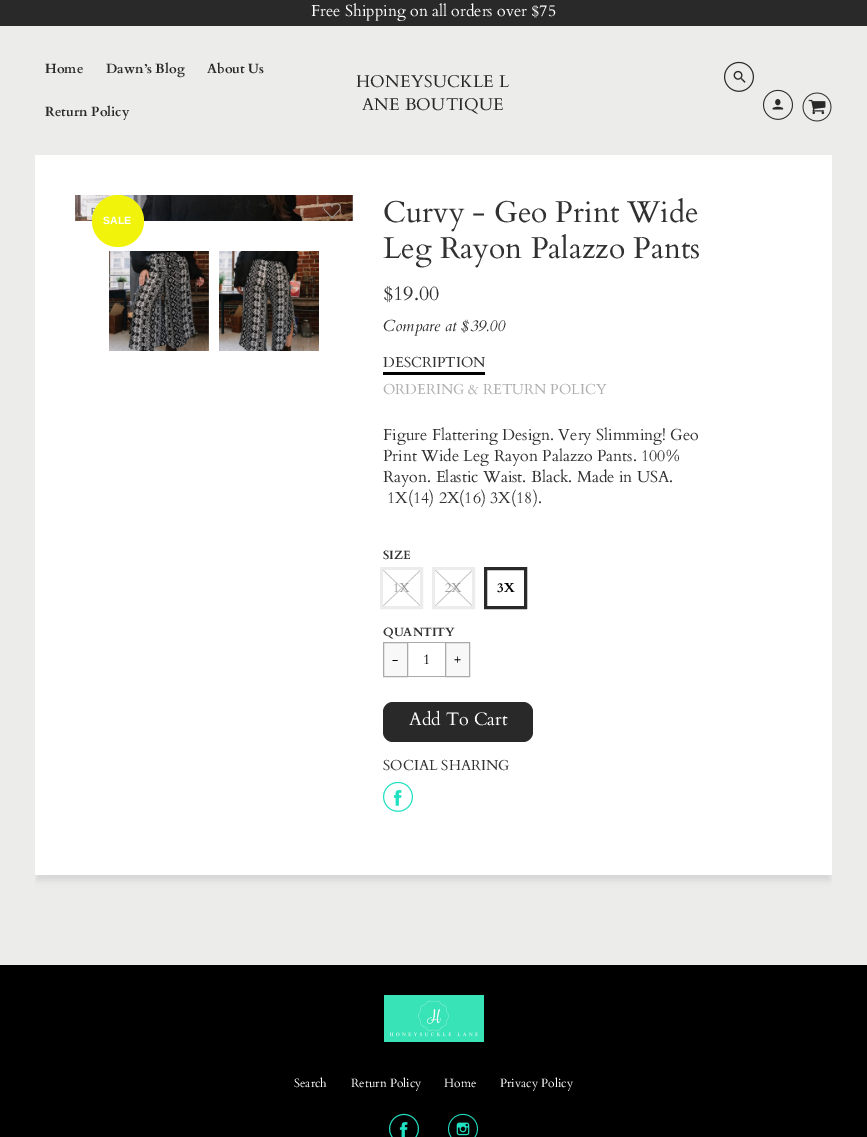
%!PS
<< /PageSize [867 1137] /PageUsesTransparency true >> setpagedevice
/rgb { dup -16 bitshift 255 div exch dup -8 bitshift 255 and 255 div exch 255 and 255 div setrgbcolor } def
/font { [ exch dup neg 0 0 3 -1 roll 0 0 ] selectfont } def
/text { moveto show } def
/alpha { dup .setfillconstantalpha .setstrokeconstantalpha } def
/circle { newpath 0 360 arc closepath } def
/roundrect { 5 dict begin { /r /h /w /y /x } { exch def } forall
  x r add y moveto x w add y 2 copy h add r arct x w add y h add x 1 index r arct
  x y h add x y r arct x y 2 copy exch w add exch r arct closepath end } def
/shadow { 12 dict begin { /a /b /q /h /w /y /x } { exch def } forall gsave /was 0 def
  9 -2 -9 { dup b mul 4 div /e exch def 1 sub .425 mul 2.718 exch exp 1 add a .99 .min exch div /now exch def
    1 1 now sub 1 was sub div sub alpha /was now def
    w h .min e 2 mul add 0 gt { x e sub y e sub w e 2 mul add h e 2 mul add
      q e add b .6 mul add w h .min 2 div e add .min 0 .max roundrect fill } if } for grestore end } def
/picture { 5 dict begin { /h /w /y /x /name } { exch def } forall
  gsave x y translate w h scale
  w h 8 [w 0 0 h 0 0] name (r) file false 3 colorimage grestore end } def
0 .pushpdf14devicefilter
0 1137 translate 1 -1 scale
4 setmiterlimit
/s1 { /Cardo-Regular 16 font 16#FFFFFF rgb } def
/s2 { /Cardo-Bold 13.25 font 16#292929 rgb } def
/s3 { /LiberationSans-Bold 10.5 font 16#FFFFFF rgb } def
/s4 { /Cardo-Regular 30 font 16#313131 rgb } def
/s5 { /Cardo-Regular 20 font 16#313131 rgb } def
/s6 { /Cardo-Italic 16 font 16#313131 rgb } def
/s7 { /Cardo-Regular 14.4 font 16#313131 rgb } def
/s8 { /Cardo-Regular 14.4 font 16#AFAFAF rgb } def
/s9 { /Cardo-Regular 16 font 16#313131 rgb } def
/s10 { /Cardo-Bold 12 font 16#313131 rgb } def
/s11 { /Cardo-Regular 13 font 16#999999 rgb } def
/s12 { /Cardo-Bold 13 font 16#000000 rgb } def
/s13 { /Cardo-Regular 14 font 16#000000 rgb } def
/s14 { /Cardo-Regular 18 font 16#FFFFFF rgb } def
/s15 { /Cardo-Regular 12 font 16#FFFFFF rgb } def
16#ECECEB rgb
0 0 867 1137 rectfill
16#292929 rgb
0 0 867 26 rectfill
s1
(Free Shipping on all orders over $75) 311 16 text
s2
(Home) 45 73 text
(Dawn’s Blog) 106 73 text
(About Us) 207 73 text
(Return Policy) 45 116 text
/Cardo-Regular 17 font
356 87 moveto 0.25 0 (HONEYSUCKLE L) ashow
362 110 moveto 0.25 0 (ANE BOUTIQUE) ashow
(pic1.raw) 724 61 30 31 picture
(pic2.raw) 763 89 30 31 picture
(pic3.raw) 802 92 30 30 picture
gsave
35 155 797 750 rectclip
16#A3A3A3 rgb
37 164 793 716 0 3.5 0.32 shadow
grestore
16#FFFFFF rgb
35 155 797 720 rectfill
(pic4.raw) 75 195 278 26 picture
16#F1F30A rgb
118 221 26 circle fill
s3
(SALE) 103 224 text
(pic5.raw) 109 251 100 100 picture
(pic6.raw) 219 251 100 100 picture
s4
(Curvy - Geo Print Wide) 383 222 text
(Leg Rayon Palazzo Pants) 383 258 text
s5
($19.00) 383 300 text
s6
(Compare at $39.00) 383 331 text
s7
(DESCRIPTION) 383 367 text
16#000000 rgb
383 372 102 3 rectfill
s8
(ORDERING & RETURN POLICY) 383 394 text
s9
(Figure Flattering Design. Very Slimming! Geo) 383 440 text
(Print Wide Leg Rayon Palazzo Pants. 100%) 383 461 text
(Rayon. Elastic Waist. Black. Made in USA.) 383 482 text
(1X\(14\) 2X\(16\) 3X\(18\).) 387 503 text
s10
(SIZE) 383 559 text
16#ECECEC rgb
3 setlinewidth
381.5 568.5 40 39 rectstroke
s11
(1X) 393 592 text
(pic7.raw) 383 570 37 36 picture
16#ECECEC rgb
433.5 568.5 40 39 rectstroke
s11
(2X) 445 592 text
(pic8.raw) 435 570 37 36 picture
16#292929 rgb
485.5 568.5 40 39 rectstroke
s12
(3X) 497 592 text
s10
(QUANTITY) 383 636 text
16#AAAAAA rgb
407 642 40 1 rectfill
407 676 40 1 rectfill
16#F8F8F8 rgb
383.5 642.5 moveto 407.5 642.5 lineto 407.5 676.5 lineto 383.5 676.5 lineto closepath gsave fill grestore
16#AAAAAA rgb
1 setlinewidth
stroke
s13
(-) 392 664 text
(1) 423 664 text
16#F8F8F8 rgb
445.5 642.5 moveto 469.5 642.5 lineto 469.5 676.5 lineto 445.5 676.5 lineto closepath gsave fill grestore
16#AAAAAA rgb
stroke
s13
(+) 454 664 text
16#292929 rgb
383 702 150 40 10 roundrect fill
s14
(Add To Cart) 409 725 text
s7
(SOCIAL SHARING) 383 770 text
(pic9.raw) 383 781 30 31 picture
16#000000 rgb
0 965 867 172 rectfill
(pic10.raw) 384 995 100 47 picture
s15
(Search) 294 1087 text
(Return Policy) 351 1087 text
(Home) 444 1087 text
(Privacy Policy) 500 1087 text
(pic11.raw) 389 1113 30 24 picture
(pic12.raw) 448 1113 30 24 picture
.poppdf14devicefilter showpage
